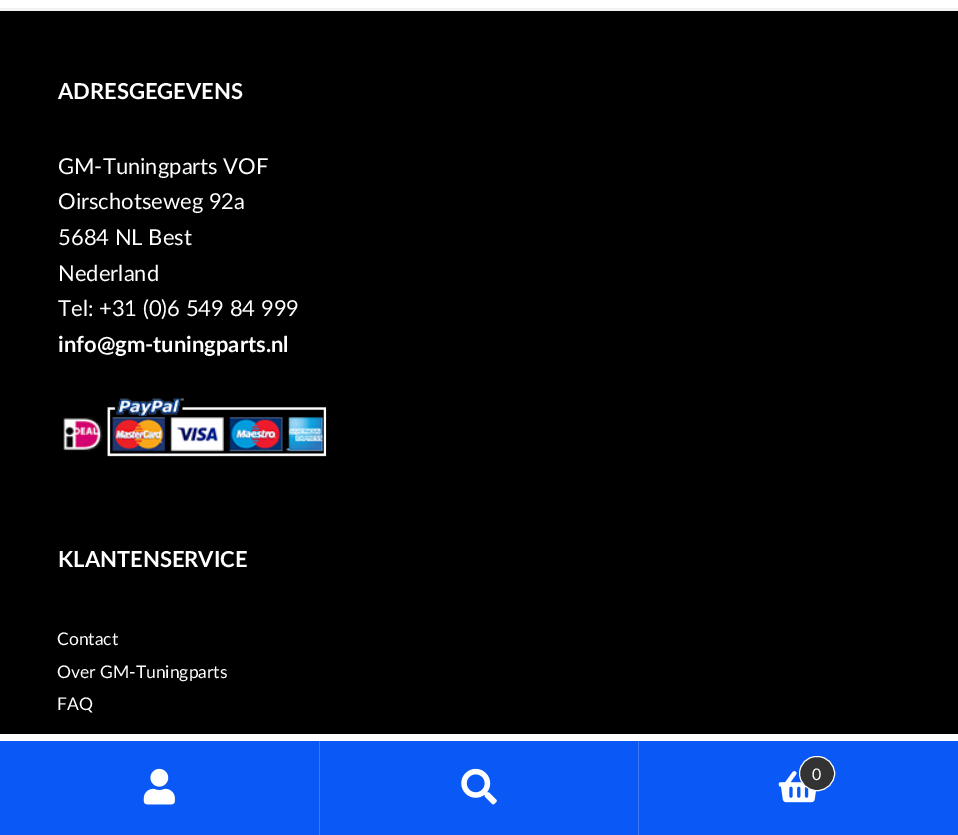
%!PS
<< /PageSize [958 835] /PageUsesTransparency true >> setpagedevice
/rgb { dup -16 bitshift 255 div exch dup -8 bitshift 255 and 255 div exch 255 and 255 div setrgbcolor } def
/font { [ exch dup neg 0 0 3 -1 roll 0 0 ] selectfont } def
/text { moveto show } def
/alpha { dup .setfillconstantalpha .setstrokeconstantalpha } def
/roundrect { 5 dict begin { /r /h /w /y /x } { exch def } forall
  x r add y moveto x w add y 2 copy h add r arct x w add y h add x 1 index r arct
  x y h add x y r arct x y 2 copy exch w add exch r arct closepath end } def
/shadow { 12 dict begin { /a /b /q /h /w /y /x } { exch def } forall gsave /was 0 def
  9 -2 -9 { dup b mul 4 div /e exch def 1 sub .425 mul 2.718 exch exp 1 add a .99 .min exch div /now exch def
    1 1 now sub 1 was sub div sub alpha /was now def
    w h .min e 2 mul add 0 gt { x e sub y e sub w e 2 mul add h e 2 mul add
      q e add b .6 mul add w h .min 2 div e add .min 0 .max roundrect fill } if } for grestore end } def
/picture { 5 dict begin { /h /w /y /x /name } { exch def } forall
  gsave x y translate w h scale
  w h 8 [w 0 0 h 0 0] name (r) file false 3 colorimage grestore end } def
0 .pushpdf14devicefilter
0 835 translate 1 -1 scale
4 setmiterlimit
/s1 { /Lato-Bold 22 font 16#FFFFFF rgb } def
/s2 { /Lato-Regular 22 font 16#FFFFFF rgb } def
/s3 { /Lato-Regular 17.5 font 16#FFFFFF rgb } def
/s4 { /Lato-Regular 16 font 16#FFFFFF rgb } def
16#FFFFFF rgb
0 0 958 835 rectfill
16#F2F2F2 rgb
4 setlinewidth
-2 10 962 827 rectstroke
16#000000 rgb
0 11 958 723 rectfill
s1
(ADRESGEGEVENS) 58 99 text
s2
(GM-Tuningparts VOF) 58 174 text
(Oirschotseweg 92a) 58 209 text
(5684 NL Best) 58 245 text
(Nederland) 58 281 text
(Tel: +31 \(0\)6 549 84 999) 58 316 text
s1
(info@gm-tuningparts.nl) 58 352 text
(pic1.raw) 63 398 264 59 picture
(KLANTENSERVICE) 58 567 text
s3
(Contact) 57 645 text
(Over GM-Tuningparts) 57 678 text
(FAQ) 57 710 text
16#000000 rgb
0 740 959 95 0 4 0.7 shadow
16#FFFFFF rgb
0 734 958 7 rectfill
16#0A58F5 rgb
320 741 318 94 rectfill
16#3B79F7 rgb
638 741 1 94 rectfill
(pic2.raw) 461 768 36 37 picture
16#0A58F5 rgb
0 741 319 94 rectfill
16#3B79F7 rgb
319 741 1 94 rectfill
(pic3.raw) 143 768 32 37 picture
16#0A58F5 rgb
639 741 319 94 rectfill
(pic4.raw) 778 771 38 32 picture
16#333333 rgb
799.5 756.5 35 34 17 roundrect gsave fill grestore
16#FFFFFF rgb
1 setlinewidth
stroke
s4
(0) 812 780 text
.poppdf14devicefilter showpage
